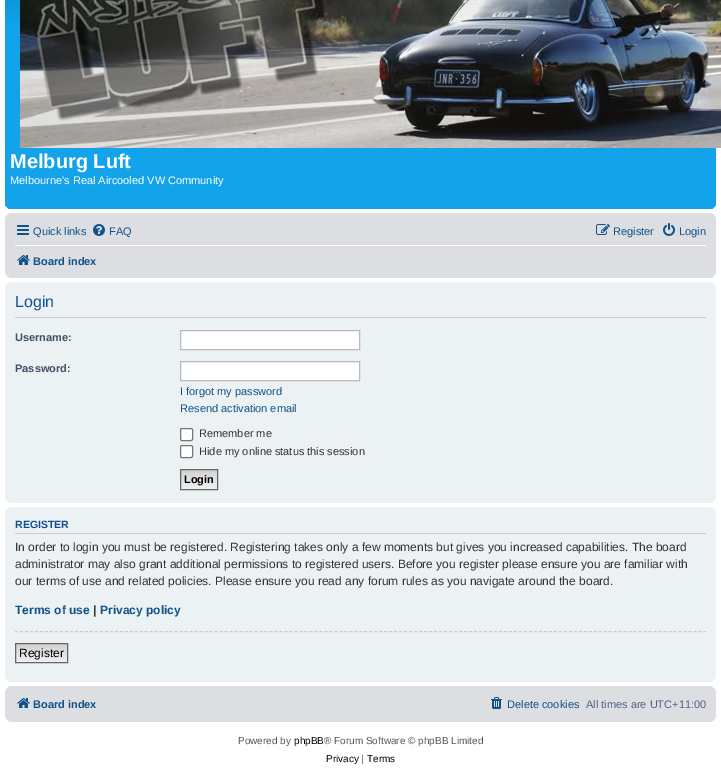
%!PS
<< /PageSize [721 769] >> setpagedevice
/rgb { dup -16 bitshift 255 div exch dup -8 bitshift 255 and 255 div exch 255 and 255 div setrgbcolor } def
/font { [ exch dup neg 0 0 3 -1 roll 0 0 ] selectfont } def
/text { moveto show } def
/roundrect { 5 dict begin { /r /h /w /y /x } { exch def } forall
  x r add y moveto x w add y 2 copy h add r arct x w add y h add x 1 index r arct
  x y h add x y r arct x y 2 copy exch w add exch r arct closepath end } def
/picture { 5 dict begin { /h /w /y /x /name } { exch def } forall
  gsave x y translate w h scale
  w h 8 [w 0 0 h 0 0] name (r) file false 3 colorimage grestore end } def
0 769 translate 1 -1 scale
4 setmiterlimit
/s1 { /LiberationSans-Bold 20 font 16#FFFFFF rgb } def
/s2 { /LiberationSans-Regular 11 font 16#FFFFFF rgb } def
/s3 { /LiberationSans-Regular 11 font 16#105289 rgb } def
/s4 { /LiberationSans-Bold 11 font 16#105289 rgb } def
/s5 { /LiberationSans-Regular 16 font 16#115098 rgb } def
/s6 { /LiberationSans-Bold 11 font 16#425067 rgb } def
/s7 { /LiberationSans-Regular 11 font 16#333333 rgb } def
/s8 { /LiberationSans-Bold 11 font 16#000000 rgb } def
/s9 { /LiberationSans-Bold 10.5 font 16#115098 rgb } def
/s10 { /LiberationSans-Regular 12 font 16#333333 rgb } def
/s11 { /LiberationSans-Bold 12 font 16#105289 rgb } def
/s12 { /LiberationSans-Bold 12 font 16#333333 rgb } def
/s13 { /LiberationSans-Regular 12 font 16#000000 rgb } def
/s14 { /LiberationSans-Regular 11 font 16#536482 rgb } def
/s15 { /LiberationSans-Regular 10 font 16#555555 rgb } def
/s16 { /LiberationSans-Regular 10 font 16#000000 rgb } def
16#FFFFFF rgb
0 0 721 769 rectfill
gsave 5 -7 711 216 7 roundrect clip newpath
<< /ShadingType 2 /ColorSpace /DeviceRGB /Coords [361 -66 361 209] /Extend [true true] /Function << /FunctionType 3 /Domain [0 1] /Functions [<< /FunctionType 2 /Domain [0 1] /C0 [0.416 0.808 1] /C1 [0 0.463 0.694] /N 1 >> << /FunctionType 2 /Domain [0 1] /C0 [0 0.463 0.694] /C1 [0.071 0.639 0.922] /N 1 >> << /FunctionType 2 /Domain [0 1] /C0 [0.071 0.639 0.922] /C1 [0.071 0.639 0.922] /N 1 >>] /Bounds [0.01 0.33] /Encode [0 1 0 1 0 1] >> >> shfill grestore
(pic1.raw) 20 0 701 148 picture
s1
(Melburg Luft) 10 168 text
s2
(Melbourne's Real Aircooled VW Community) 10 184 text
16#DCDEE2 rgb
5 213 711 65 7 roundrect fill
(pic2.raw) 17 225 12 10 picture
s3
(Quick links) 33 235 text
(pic3.raw) 93 224 12 12 picture
(FAQ) 109 235 text
(pic4.raw) 596 224 14 11 picture
(Register) 613 235 text
(pic5.raw) 663 223 12 13 picture
(Login) 679 235 text
16#FFFFFF rgb
15 245 691 1 rectfill
(pic6.raw) 17 255 13 10 picture
s4
(Board index) 33 265 text
16#ECF1F3 rgb
5 282 711 221 7 roundrect fill
16#CCCCCC rgb
15 317 691 1 rectfill
s5
(Login) 15 307 text
s6
(Username:) 15 341 text
16#FFFFFF rgb
180.5 330.5 moveto 359.5 330.5 lineto 359.5 349.5 lineto 180.5 349.5 lineto closepath gsave fill grestore
16#B4BAC0 rgb
stroke
s6
(Password:) 15 372 text
16#FFFFFF rgb
180.5 361.5 moveto 359.5 361.5 lineto 359.5 380.5 lineto 180.5 380.5 lineto closepath gsave fill grestore
16#B4BAC0 rgb
stroke
s3
(I forgot my password) 180 395 text
(Resend activation email) 180 412 text
16#FFFFFF rgb
180.5 428.5 12 12 1.5 roundrect gsave fill grestore
16#767676 rgb
stroke
s7
(Remember me) 199 437 text
16#FFFFFF rgb
180.5 445.5 12 12 1.5 roundrect gsave fill grestore
16#767676 rgb
stroke
s7
(Hide my online status this session) 199 455 text
gsave 181 470 moveto 217 470 lineto 217 489 lineto 181 489 lineto closepath clip newpath
<< /ShadingType 2 /ColorSpace /DeviceRGB /Coords [199 470 199 489] /Extend [true true] /Function << /FunctionType 2 /Domain [0 1] /C0 [0.824 0.824 0.824] /C1 [0.937 0.937 0.937] /N 1 >> >> shfill grestore
16#666666 rgb
180.5 469.5 37 20 rectstroke
s8
(Login) 184 483 text
16#ECF1F3 rgb
5 507 711 175 7 roundrect fill
16#CCCCCC rgb
15 533 691 1 rectfill
s9
(REGISTER) 15 528 text
s10
(In order to login you must be registered. Registering takes only a few moments but gives you increased capabilities. The board) 15 551 text
(administrator may also grant additional permissions to registered users. Before you register please ensure you are familiar with) 15 568 text
(our terms of use and related policies. Please ensure you read any forum rules as you navigate around the board.) 15 585 text
s11
(Terms of use) 15 614 text
s12
(|) 93 614 text
s11
(Privacy policy) 100 614 text
16#CCCCCC rgb
[3 1.99] 0 setdash
15 631.5 moveto 706 631.5 lineto stroke
gsave 16 644 moveto 67 644 lineto 67 662 lineto 16 662 lineto closepath clip newpath
<< /ShadingType 2 /ColorSpace /DeviceRGB /Coords [42 644 42 662] /Extend [true true] /Function << /FunctionType 2 /Domain [0 1] /C0 [0.824 0.824 0.824] /C1 [0.937 0.937 0.937] /N 1 >> >> shfill grestore
16#666666 rgb
[] 0 setdash
15.5 643.5 52 19 rectstroke
s13
(Register) 19 657 text
16#DCDEE2 rgb
5 686 711 36 7 roundrect fill
(pic6.raw) 17 698 13 10 picture
s4
(Board index) 33 708 text
(pic7.raw) 491 697 11 12 picture
s3
(Delete cookies) 507 708 text
s14
(All times are UTC+11:00) 586 708 text
s15
(Powered by) 238 744 text
s16
(phpBB) 294 744 text
s15
(® Forum Software © phpBB Limited) 324 744 text
s16
(Privacy) 326 762 text
s15
(|) 361 762 text
s16
(Terms) 367 762 text
showpage
